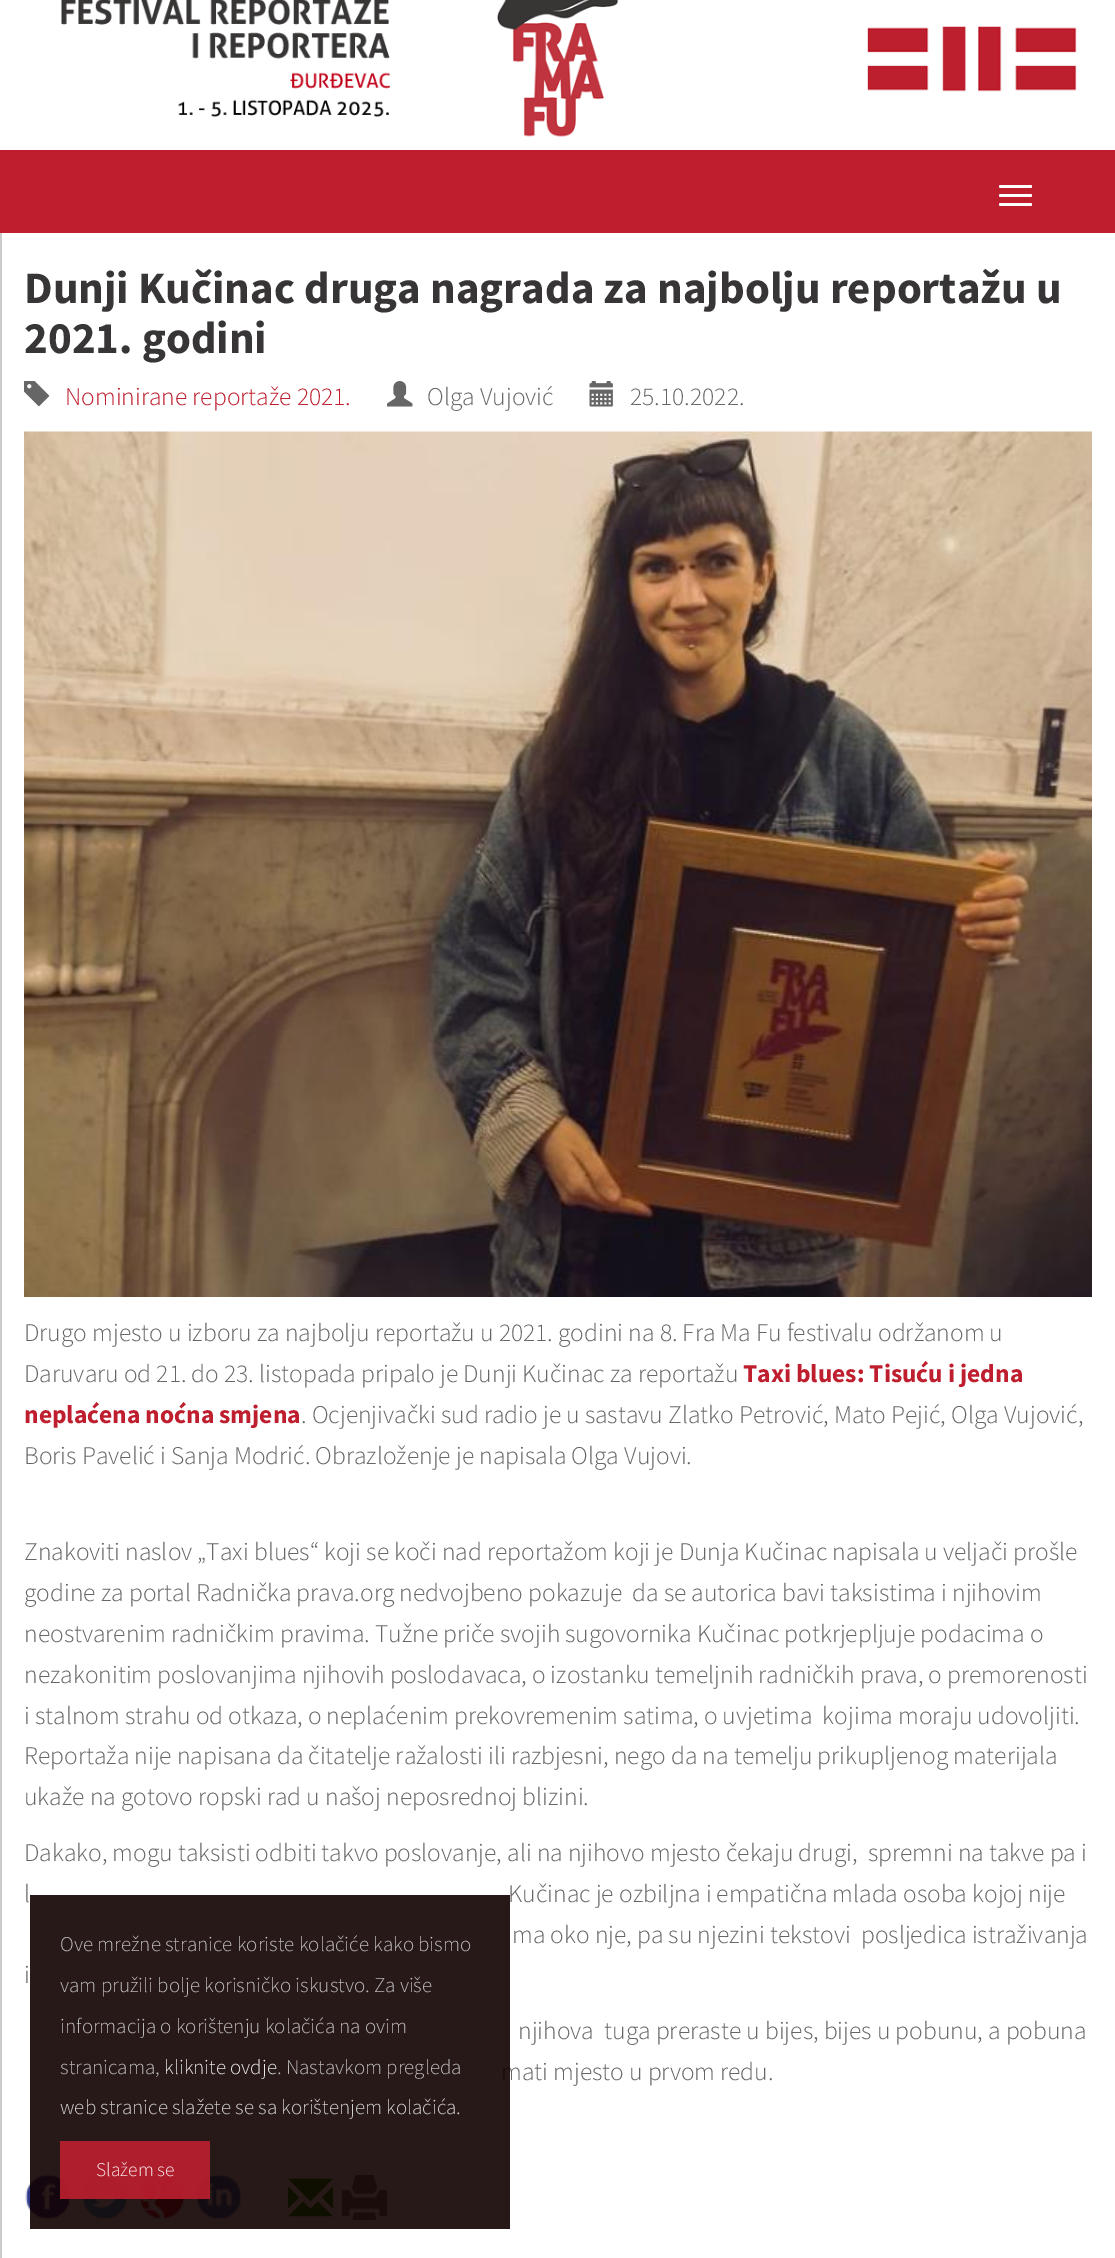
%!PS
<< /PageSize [1115 2258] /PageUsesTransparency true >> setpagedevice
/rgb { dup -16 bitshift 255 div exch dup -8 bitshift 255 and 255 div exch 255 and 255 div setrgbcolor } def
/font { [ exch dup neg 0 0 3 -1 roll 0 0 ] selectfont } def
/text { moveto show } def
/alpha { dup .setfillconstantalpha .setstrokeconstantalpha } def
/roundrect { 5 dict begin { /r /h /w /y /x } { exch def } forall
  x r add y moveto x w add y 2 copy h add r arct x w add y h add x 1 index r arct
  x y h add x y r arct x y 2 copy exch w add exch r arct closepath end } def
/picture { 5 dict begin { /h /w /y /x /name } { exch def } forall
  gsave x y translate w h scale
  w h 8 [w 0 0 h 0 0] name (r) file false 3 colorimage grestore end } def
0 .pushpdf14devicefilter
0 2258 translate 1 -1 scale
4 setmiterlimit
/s1 { /SourceSansPro-Bold 45 font 16#373535 rgb } def
/s2 { /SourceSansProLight-Light 25.5 font 16#BE1E2E rgb } def
/s3 { /SourceSansProLight-Light 25.5 font 16#666666 rgb } def
/s4 { /SourceSansPro-Bold 25.5 font 16#BE1E2E rgb } def
/s5 { /SourceSansProLight-Light 21 font 16#BCBABA rgb } def
/s6 { /SourceSansProLight-Light 21 font 16#E9E8E8 rgb } def
/s7 { /SourceSansProLight-Light 21 font 16#D1D1D1 rgb } def
/s8 { /SourceSansProLight-Light 19.5 font 16#F7E8EA rgb } def
16#FFFFFF rgb
0 0 1115 2258 rectfill
(pic1.raw) 61 0 1016 137 picture
16#BE1E2E rgb
0 150 1115 83 rectfill
16#FFFFFF rgb
999 185 33 3 1.5 roundrect fill
999 194 33 3 1.5 roundrect fill
999 203 33 3 1.5 roundrect fill
16#CCCCCC rgb
0 233 2 2025 rectfill
s1
(Dunji Kučinac druga nagrada za najbolju reportažu u) 24 303 text
(2021. godini) 24 353 text
(pic2.raw) 24 381 26 26 picture
s2
(Nominirane reportaže 2021.) 65 405 text
(pic3.raw) 387 381 26 26 picture
s3
(Olga Vujović) 427 405 text
(pic4.raw) 589 381 24 26 picture
(25.10.2022.) 630 405 text
(pic5.raw) 24 431 1068 866 picture
(Drugo mjesto u izboru za najbolju reportažu u 2021. godini na 8. Fra Ma Fu festivalu održanom u) 24 1341 text
(Daruvaru od 21. do 23. listopada pripalo je Dunji Kučinac za reportažu) 24 1382 text
s4
(Taxi blues: Tisuću i jedna) 743 1382 text
(neplaćena noćna smjena) 24 1423 text
s3
(. Ocjenjivački sud radio je u sastavu Zlatko Petrović, Mato Pejić, Olga Vujović,) 301 1423 text
(Boris Pavelić i Sanja Modrić. Obrazloženje je napisala Olga Vujovi.) 24 1464 text
(Znakoviti naslov „Taxi blues“ koji se koči nad reportažom koji je Dunja Kučinac napisala u veljači prošle) 24 1560 text
(godine za portal Radnička prava.org nedvojbeno pokazuje  da se autorica bavi taksistima i njihovim) 24 1601 text
(neostvarenim radničkim pravima. Tužne priče svojih sugovornika Kučinac potkrjepljuje podacima o) 24 1642 text
(nezakonitim poslovanjima njihovih poslodavaca, o izostanku temeljnih radničkih prava, o premorenosti) 24 1683 text
(i stalnom strahu od otkaza, o neplaćenim prekovremenim satima, o uvjetima  kojima moraju udovoljiti.) 24 1724 text
(Reportaža nije napisana da čitatelje ražalosti ili razbjesni, nego da na temelju prikupljenog materijala) 24 1764 text
(ukaže na gotovo ropski rad u našoj neposrednoj blizini.) 24 1805 text
(Dakako, mogu taksisti odbiti takvo poslovanje, ali na njihovo mjesto čekaju drugi,  spremni na takve pa i) 24 1861 text
(l) 24 1902 text
(Kučinac je ozbiljna i empatična mlada osoba kojoj nije) 508 1902 text
(ma oko nje, pa su njezini tekstovi  posljedica istraživanja) 512 1943 text
(i) 24 1983 text
(njihova  tuga preraste u bijes, bijes u pobunu, a pobuna) 518 2039 text
(mati mjesto u prvom redu.) 501 2080 text
(pic6.raw) 25 2174 46 46 picture
(pic7.raw) 82 2174 46 46 picture
(pic8.raw) 139 2174 46 46 picture
(pic9.raw) 196 2174 46 46 picture
(pic10.raw) 288 2178 45 39 picture
(pic11.raw) 342 2175 45 45 picture
0.9 alpha
16#110000 rgb
30 1895 480 334 rectfill
1 alpha
s5
(Ove mrežne stranice koriste kolačiće kako bismo) 60 1951 text
(vam pružili bolje korisničko iskustvo. Za više) 60 1992 text
(informacija o korištenju kolačića na ovim) 60 2033 text
(stranicama,) 60 2074 text
s6
(kliknite ovdje) 164 2074 text
s5
(. Nastavkom pregleda) 277 2074 text
s7
(web stranice slažete se sa korištenjem kolačića.) 60 2114 text
0.9 alpha
16#BE1E2E rgb
60 2141 150 58 rectfill
1 alpha
s8
(Slažem se) 96 2176 text
.poppdf14devicefilter showpage
